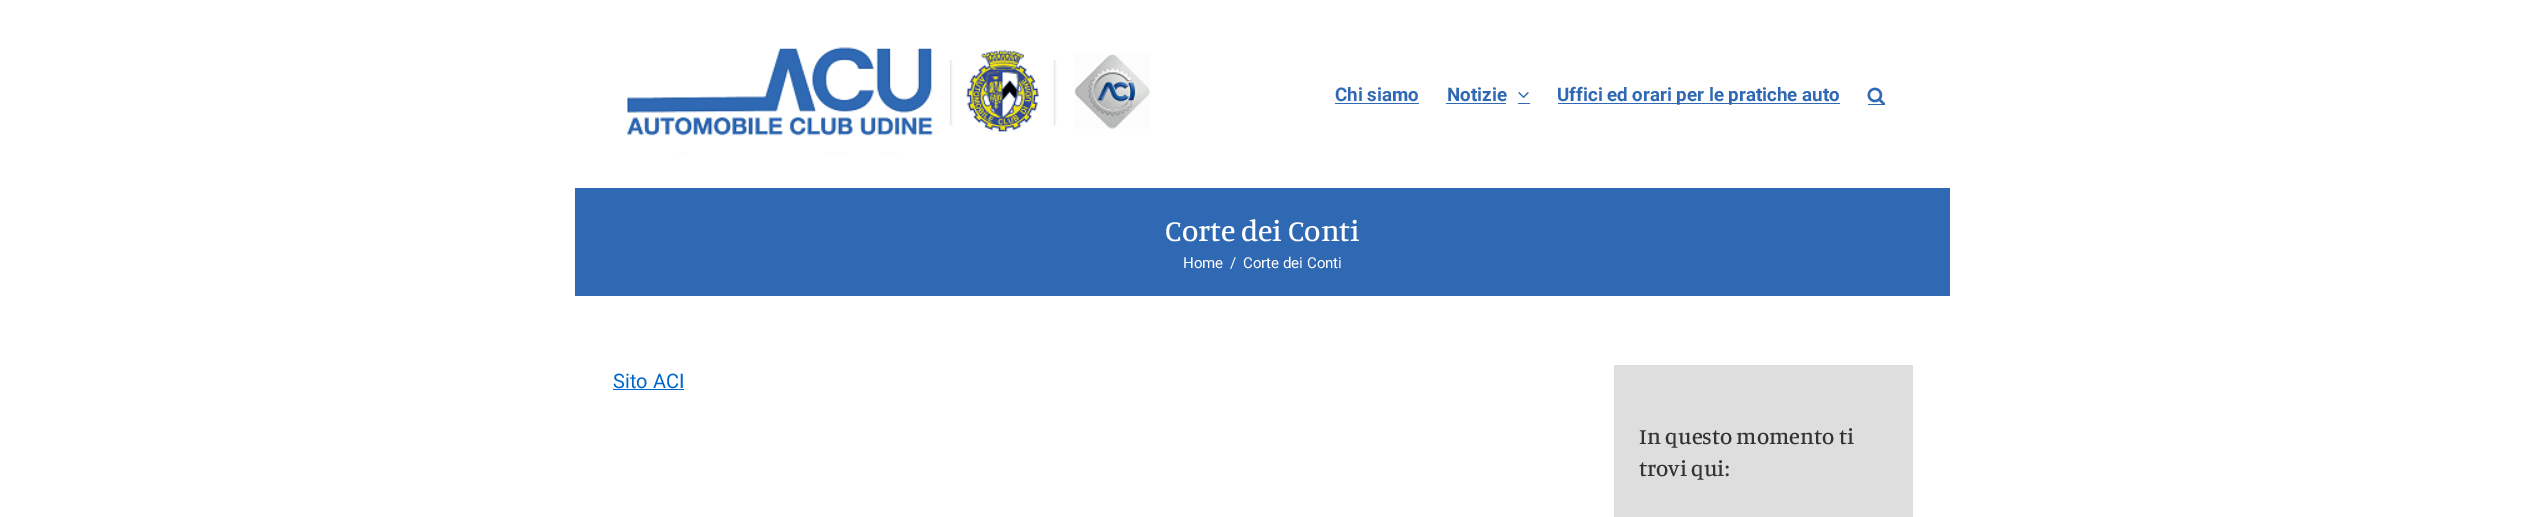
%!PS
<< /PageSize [2525 517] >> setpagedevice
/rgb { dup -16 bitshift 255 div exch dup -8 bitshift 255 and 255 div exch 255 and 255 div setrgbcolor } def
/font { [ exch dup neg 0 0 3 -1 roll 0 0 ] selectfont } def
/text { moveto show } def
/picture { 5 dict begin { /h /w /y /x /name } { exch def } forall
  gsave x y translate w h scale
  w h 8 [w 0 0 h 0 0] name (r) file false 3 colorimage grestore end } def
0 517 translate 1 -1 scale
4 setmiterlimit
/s1 { /Roboto-Bold 18.75 font 16#3069B3 rgb } def
/s2 { /Manuale-Medium 30 font 16#FFFFFF rgb } def
/s3 { /Roboto-Regular 15 font 16#FFFFFF rgb } def
/s4 { /Roboto-Regular 20 font 16#0066CC rgb } def
/s5 { /Manuale-Medium 22.5 font 16#333333 rgb } def
16#FFFFFF rgb
0 0 2525 517 rectfill
(pic1.raw) 627 47 523 108 picture
s1
(Chi siamo) 1335 101 text
1335 103 84 1 rectfill
(Notizie) 1447 101 text
1446 103 60 1 rectfill
(pic2.raw) 1518 92 11 6 picture
1518 103 12 1 rectfill
1558 103 282 1 rectfill
(Uffici ed orari per le pratiche auto) 1557 101 text
1868 104 17 1 rectfill
(pic3.raw) 1867 87 18 17 picture
575 188 1375 108 rectfill
s2
(Corte dei Conti) 1165 241 text
s3
(Home) 1183 268 text
(/) 1230 268 text
(Corte dei Conti) 1243 268 text
s4
(Sito ACI) 613 388 text
613 389 71 1 rectfill
16#DEDEDE rgb
1614 365 299 152 rectfill
s5
(In questo momento ti) 1639 444 text
(trovi qui:) 1639 476 text
showpage
